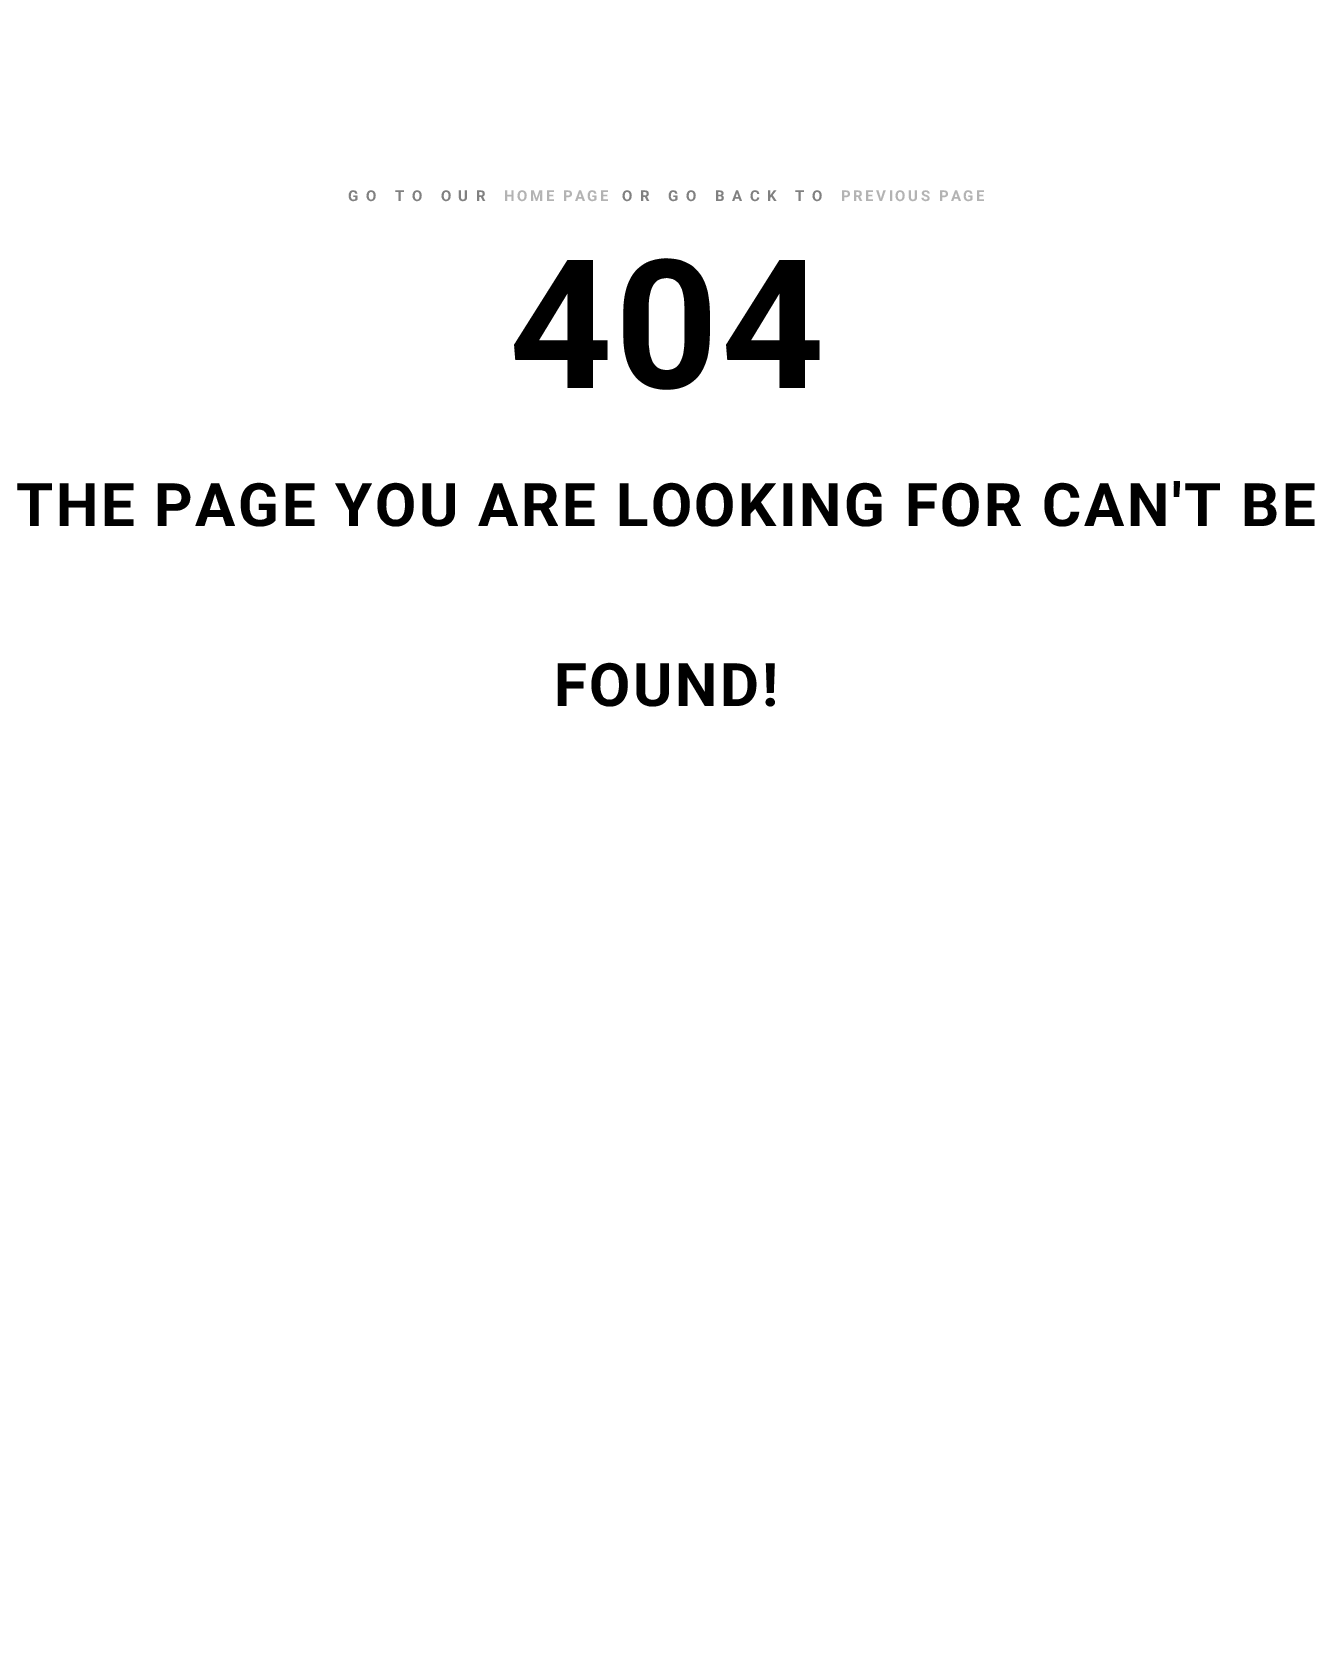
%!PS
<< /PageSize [1335 1669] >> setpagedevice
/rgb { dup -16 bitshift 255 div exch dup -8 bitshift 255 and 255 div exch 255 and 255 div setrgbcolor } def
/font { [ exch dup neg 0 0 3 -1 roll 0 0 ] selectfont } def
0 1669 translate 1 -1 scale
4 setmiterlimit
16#FFFFFF rgb
0 0 1335 1669 rectfill
/Roboto-Bold 15 font
16#808080 rgb
348 201 moveto 7.5 0 (GO TO OUR) ashow
16#B3B3B3 rgb
504 201 moveto 2.5 0 (HOME PAGE) ashow
16#808080 rgb
622 201 moveto 7.5 0 (OR GO BACK TO) ashow
16#B3B3B3 rgb
841 201 moveto 2.5 0 (PREVIOUS PAGE) ashow
/Roboto-Bold 180 font
16#000000 rgb
509 388 moveto 2.5 0 (404) ashow
/Roboto-Bold 60 font
16 526 moveto 2.5 0 (THE PAGE YOU ARE LOOKING FOR CAN'T BE) ashow
554 706 moveto 2.5 0 (FOUND!) ashow
showpage
